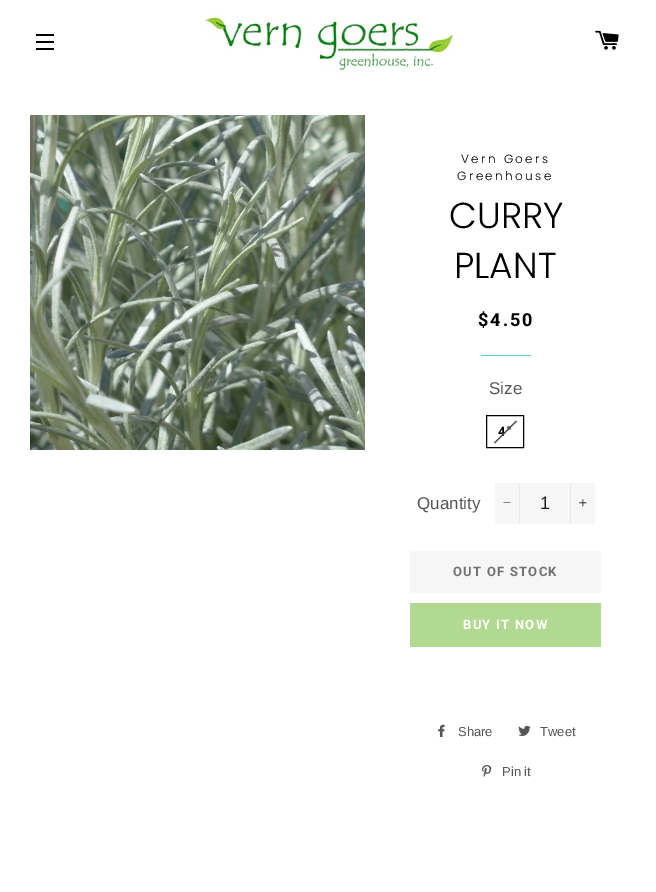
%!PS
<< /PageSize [656 892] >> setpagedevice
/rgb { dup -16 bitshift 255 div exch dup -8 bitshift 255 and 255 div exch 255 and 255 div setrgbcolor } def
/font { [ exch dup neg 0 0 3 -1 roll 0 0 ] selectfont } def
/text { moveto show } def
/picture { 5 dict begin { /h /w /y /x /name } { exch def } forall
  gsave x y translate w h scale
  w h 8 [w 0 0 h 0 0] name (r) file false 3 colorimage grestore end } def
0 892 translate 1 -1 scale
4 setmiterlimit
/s1 { /Poppins-Light 36 font 16#000000 rgb } def
/s2 { /LiberationSans-Regular 17 font 16#565656 rgb } def
/s3 { /LiberationSans-Regular 18 font 16#1C1D1D rgb } def
/s4 { /LiberationSans-Regular 13 font 16#565656 rgb } def
16#FFFFFF rgb
0 0 656 892 rectfill
16#000000 rgb
36 34 18 2 rectfill
36 41 18 2 rectfill
36 48 18 2 rectfill
(pic1.raw) 204 14 250 60 picture
(pic2.raw) 595 30 24 20 picture
(pic3.raw) 30 115 335 335 picture
/Poppins-Light 12 font
461 163 moveto 2.4 0 (Vern Goers) ashow
457 180 moveto 2.4 0 (Greenhouse) ashow
s1
(CURRY) 449 228 text
(PLANT) 454 278 text
/Roboto-Bold 18 font
478 326 moveto 2 0 ($4.50) ashow
16#5DD2B4 rgb
481 355 50 1 rectfill
s2
(Size) 489 394 text
16#000000 rgb
486.5 415.5 37 32 rectstroke
/Roboto-Bold 13 font
498 436 moveto 1.25 0 (4") ashow
16#565656 rgb
516 420.5 moveto 517 421.5 lineto 495 443.5 lineto 494 442.5 lineto closepath fill
s2
(Quantity) 417 509 text
16#F6F6F6 rgb
495 483 100 41 rectfill
16#E9E9E9 rgb
519 483 1 41 rectfill
16#1C1D1D rgb
503.5 502.5 moveto 510.5 502.5 lineto 510.5 503 lineto 503.5 503 lineto closepath fill
s3
(1) 540 509 text
16#E9E9E9 rgb
570 483 1 41 rectfill
(pic4.raw) 579 499 8 8 picture
16#F6F6F6 rgb
410 551 191 42 rectfill
/Roboto-Bold 13 font
16#717171 rgb
453 576 moveto 1.25 0 (OUT OF STOCK) ashow
16#B1D991 rgb
410 603 191 44 rectfill
16#FFFFFF rgb
463 629 moveto 1.25 0 (BUY IT NOW) ashow
(pic5.raw) 438 724 7 14 picture
s4
(Share) 458 736 text
(pic6.raw) 518 725 13 11 picture
(Tweet) 540 736 text
(pic7.raw) 482 765 10 12 picture
(Pin it) 502 776 text
showpage
